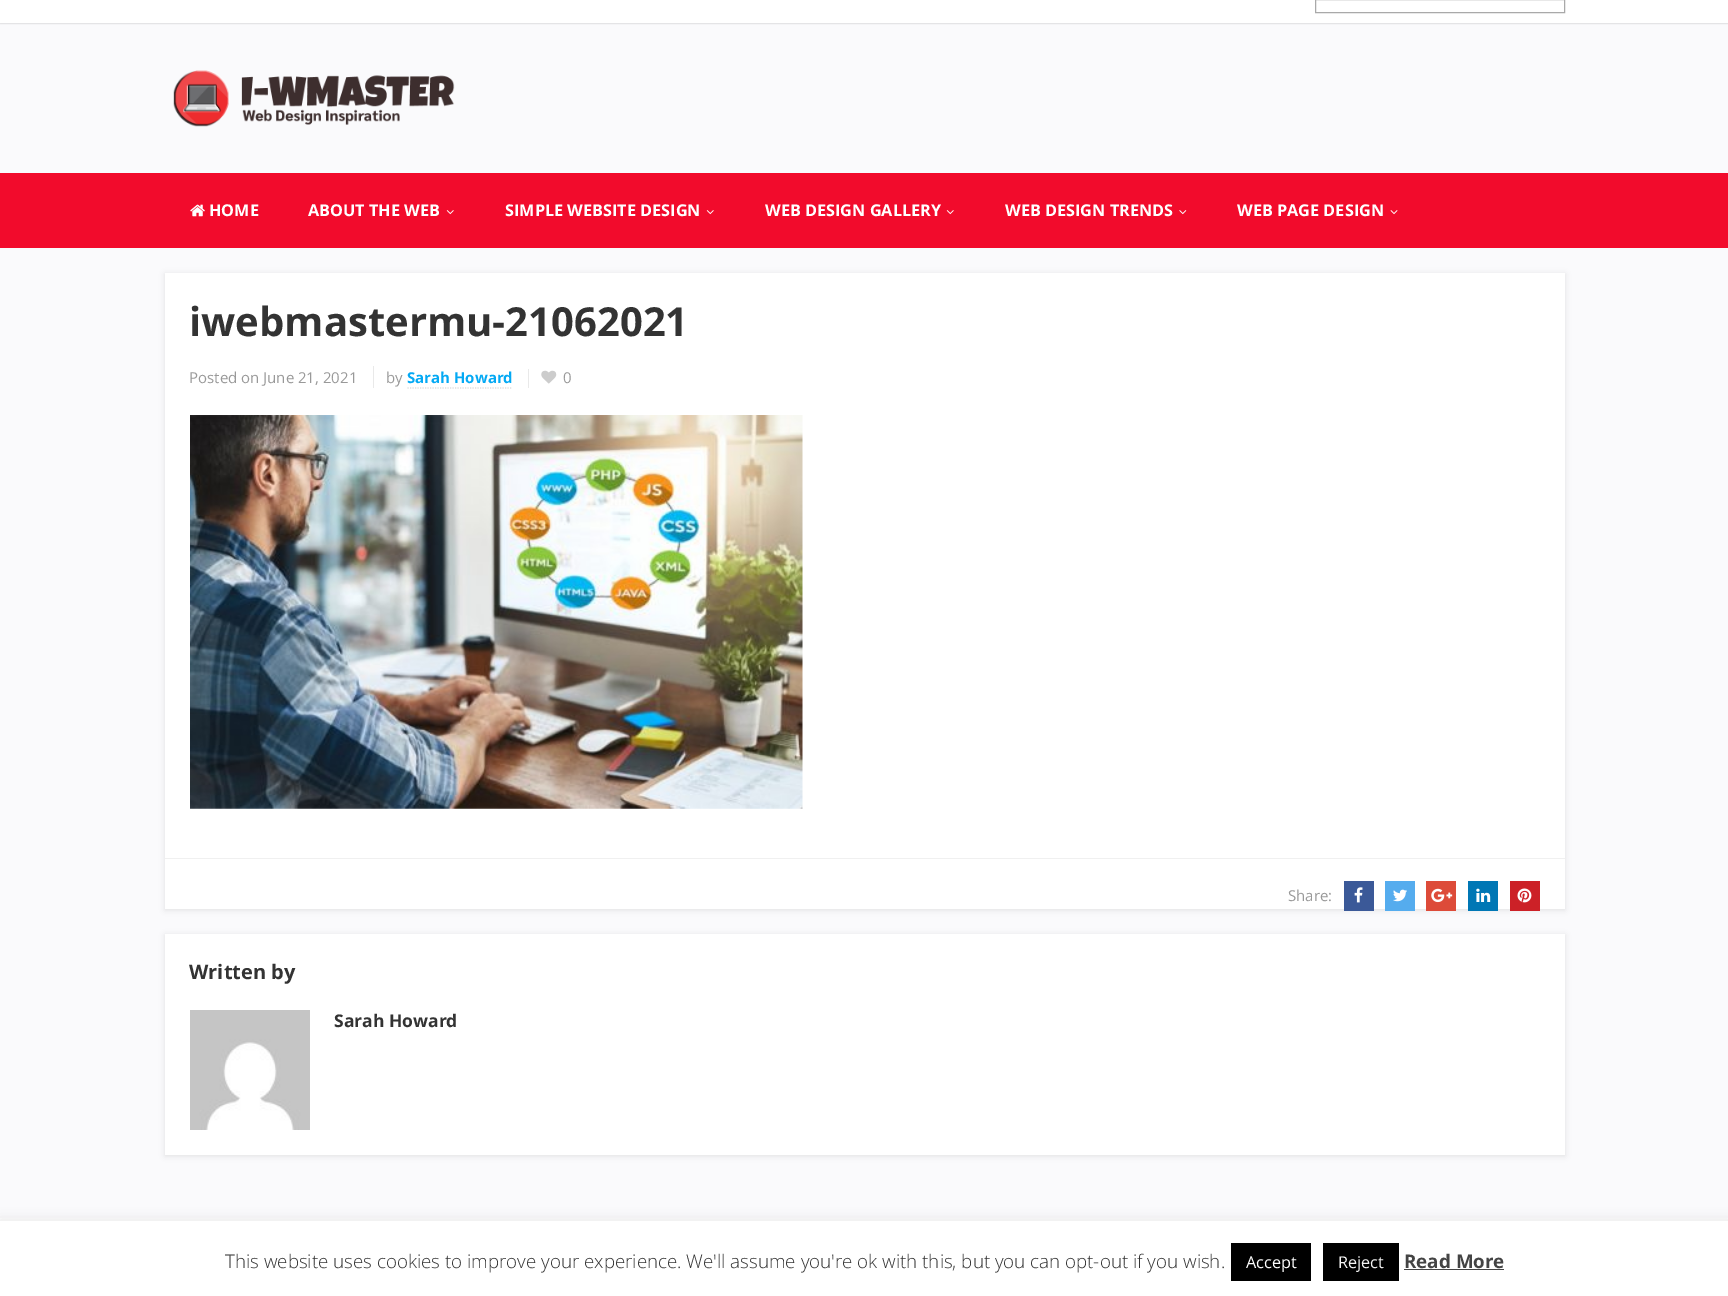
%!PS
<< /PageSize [1728 1296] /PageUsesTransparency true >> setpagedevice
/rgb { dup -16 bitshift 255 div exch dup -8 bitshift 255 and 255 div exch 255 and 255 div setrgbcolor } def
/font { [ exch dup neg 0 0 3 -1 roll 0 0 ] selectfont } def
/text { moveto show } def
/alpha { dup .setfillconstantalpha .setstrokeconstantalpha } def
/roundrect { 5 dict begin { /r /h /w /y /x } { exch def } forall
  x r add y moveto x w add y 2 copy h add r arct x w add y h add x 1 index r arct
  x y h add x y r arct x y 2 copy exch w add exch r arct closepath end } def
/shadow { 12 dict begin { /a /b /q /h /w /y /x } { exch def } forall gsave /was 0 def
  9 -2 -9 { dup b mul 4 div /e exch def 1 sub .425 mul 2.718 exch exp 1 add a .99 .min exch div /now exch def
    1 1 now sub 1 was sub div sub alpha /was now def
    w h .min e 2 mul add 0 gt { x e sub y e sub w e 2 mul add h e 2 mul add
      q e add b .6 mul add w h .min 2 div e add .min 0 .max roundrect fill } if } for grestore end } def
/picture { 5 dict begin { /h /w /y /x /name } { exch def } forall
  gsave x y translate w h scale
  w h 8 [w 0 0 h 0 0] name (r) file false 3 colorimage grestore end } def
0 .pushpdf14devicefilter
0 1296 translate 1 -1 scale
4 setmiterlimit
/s1 { /OpenSans-Bold 16.25 font 16#FFFFFF rgb } def
/s2 { /OpenSans-Bold 40 font 16#333333 rgb } def
/s3 { /OpenSans-Regular 15 font 16#999999 rgb } def
/s4 { /OpenSans-Bold 15 font 16#03A9F4 rgb } def
/s5 { /OpenSans-Bold 20 font 16#333333 rgb } def
/s6 { /OpenSans-Bold 17.5 font 16#333333 rgb } def
/s7 { /OpenSans-Light 18.75 font 16#333333 rgb } def
/s8 { /OpenSans-Regular 16.25 font 16#FFFFFF rgb } def
/s9 { /OpenSans-Regular 16.25 font 16#F4F4F4 rgb } def
/s10 { /OpenSans-Bold 18.75 font 16#444444 rgb } def
16#FAFAFC rgb
0 0 1728 1296 rectfill
16#000000 rgb
0 -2 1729 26 0 0.5 0.1 shadow
16#FFFFFF rgb
0 0 1728 23 rectfill
16#A9A9A9 rgb
1315.5 -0.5 249 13 rectstroke
(pic1.raw) 173 70 282 57 picture
16#F20B2C rgb
0 173 1728 75 rectfill
(pic2.raw) 190 204 15 13 picture
s1
(HOME) 209 216 text
(ABOUT THE WEB) 308 216 text
(pic3.raw) 446 210 8 5 picture
(SIMPLE WEBSITE DESIGN) 505 216 text
(pic3.raw) 706 210 8 5 picture
(WEB DESIGN GALLERY) 765 216 text
(pic3.raw) 946 210 8 5 picture
(WEB DESIGN TRENDS) 1005 216 text
(pic4.raw) 1179 210 8 5 picture
(WEB PAGE DESIGN) 1237 216 text
(pic5.raw) 1390 210 8 5 picture
16#BEBEBE rgb
165 274 1400 636 0 3 0.46 shadow
16#FFFFFF rgb
165 273 1400 636 rectfill
s2
(iwebmastermu-21062021) 189 336 text
s3
(Posted on June 21, 2021) 189 383 text
(by) 386 383 text
16#E9E9E9 rgb
373 366 1 22 rectfill
16#DDDDDD rgb
1.2 setlinewidth
[1.25 1.25] 0 setdash
407.5 388 moveto 512.5 388 lineto stroke
s4
(Sarah Howard) 407 383 text
16#E9E9E9 rgb
528 369 1 19 rectfill
(pic6.raw) 541 370 16 14 picture
s3
(0) 563 383 text
(pic7.raw) 190 415 613 394 picture
16#F0F0F0 rgb
165 858 1400 1 rectfill
s3
(Share:) 1288 901 text
16#3B5998 rgb
1344 881 30 30 rectfill
(pic8.raw) 1354 887 9 16 picture
16#55ACEE rgb
1385 881 30 30 rectfill
(pic9.raw) 1393 889 14 13 picture
16#DD4B39 rgb
1426 881 30 30 rectfill
(pic10.raw) 1431 888 22 15 picture
16#0077B5 rgb
1468 881 30 30 rectfill
(pic11.raw) 1476 888 15 14 picture
16#CC2127 rgb
1510 881 30 30 rectfill
(pic12.raw) 1517 888 15 15 picture
16#BEBEBE rgb
165 935 1400 221 0 3 0.46 shadow
16#FFFFFF rgb
165 934 1400 221 rectfill
s5
(Written by) 189 979 text
(pic13.raw) 190 1010 120 120 picture
s6
(Sarah Howard) 334 1027 text
16#FFFFFF rgb
0 1218 1728 3 rectfill
16#ACABAB rgb
0 1220 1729 75 0 6 0.3 shadow
16#FFFFFF rgb
0 1221 1728 75 rectfill
s7
(This website uses cookies to improve your experience. We'll assume you're ok with this, but you can opt-out if you wish.) 225 1268 text
16#000000 rgb
1231 1243 80 38 rectfill
s8
(Accept) 1246 1268 text
16#000000 rgb
1323 1243 76 38 rectfill
s9
(Reject) 1338 1268 text
s10
(Read More) 1404 1268 text
1404 1269 100 1 rectfill
.poppdf14devicefilter showpage
